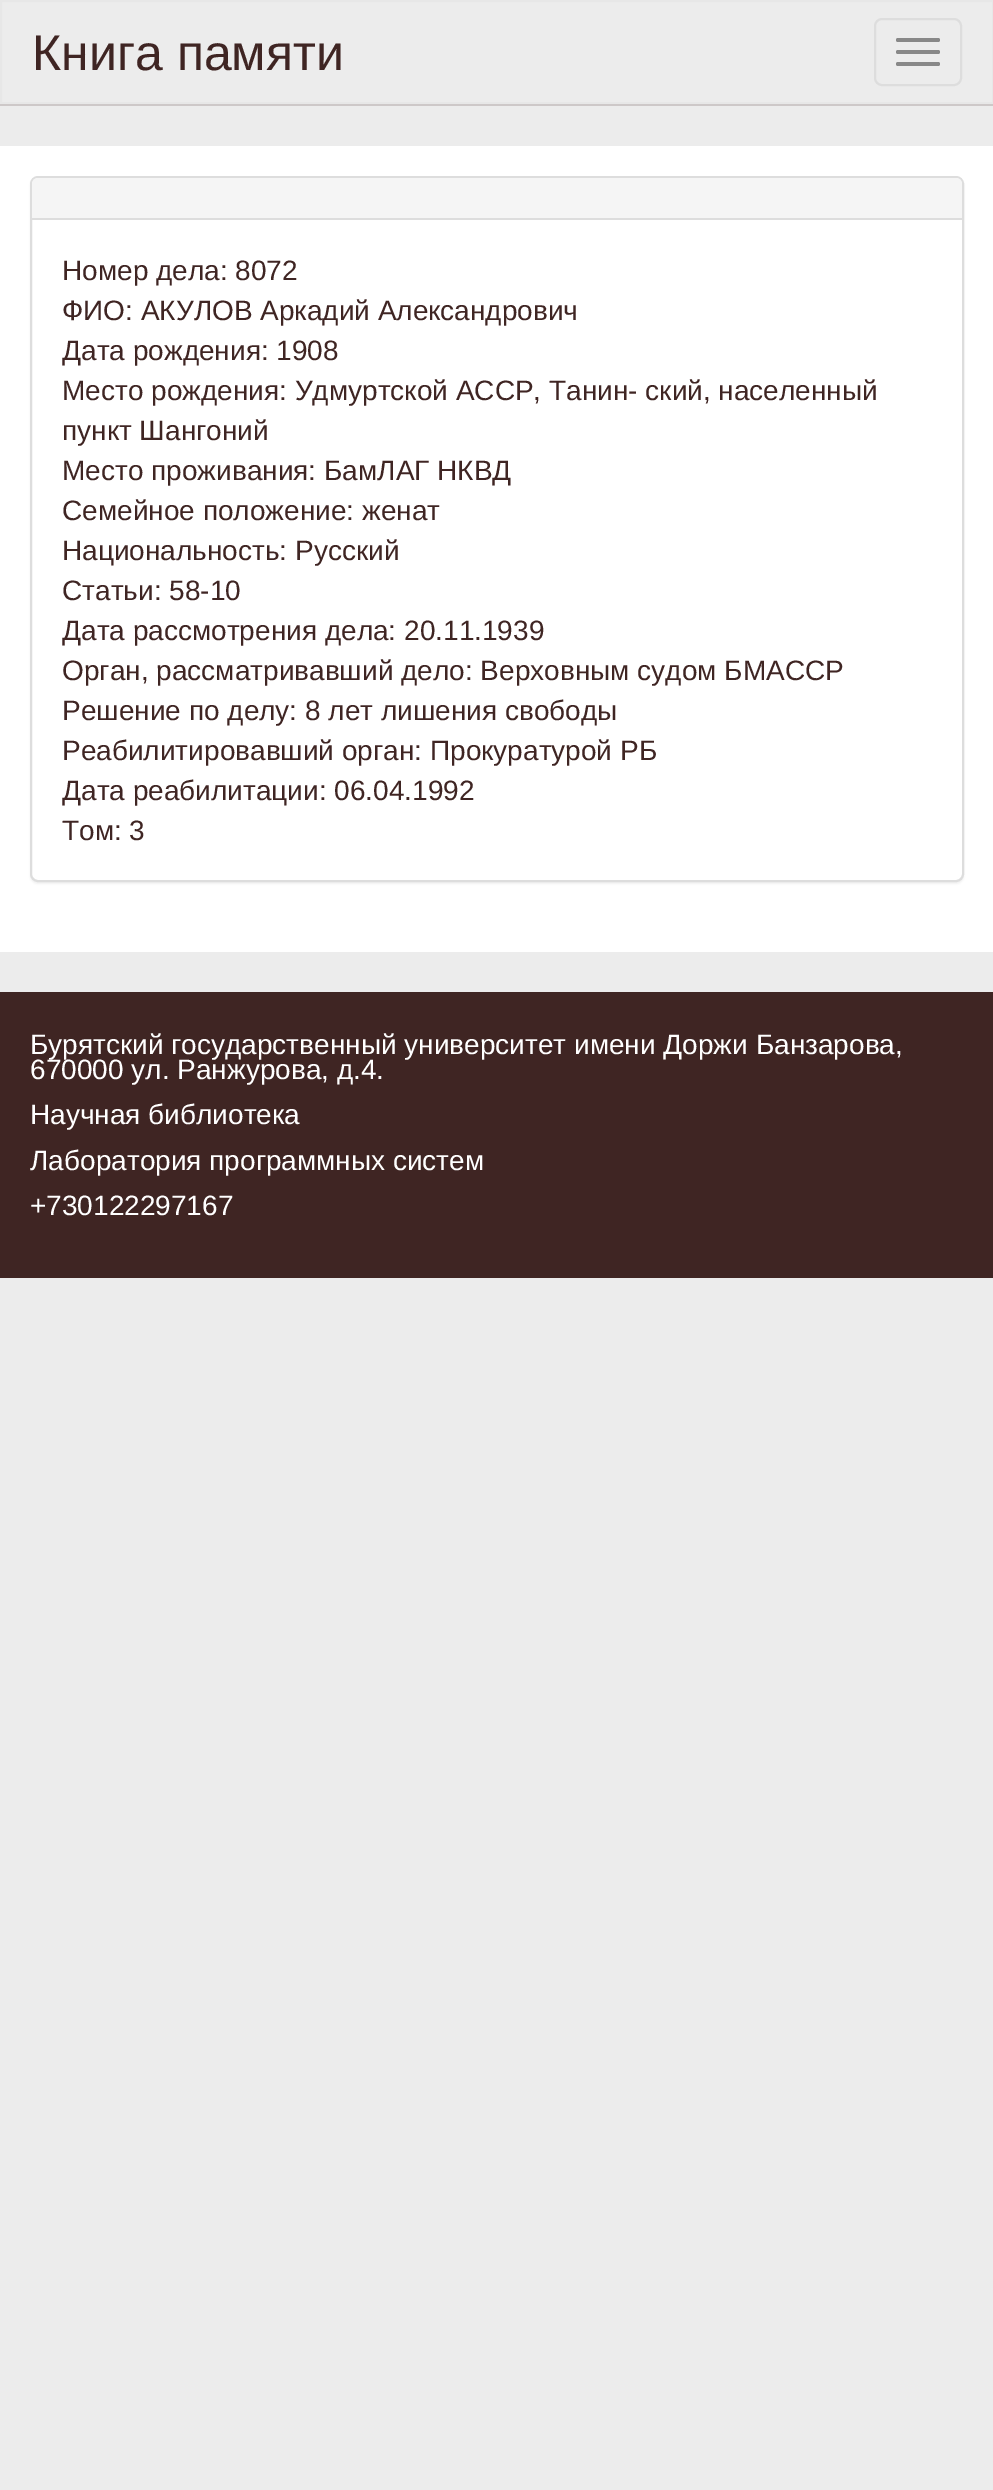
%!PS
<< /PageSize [993 2490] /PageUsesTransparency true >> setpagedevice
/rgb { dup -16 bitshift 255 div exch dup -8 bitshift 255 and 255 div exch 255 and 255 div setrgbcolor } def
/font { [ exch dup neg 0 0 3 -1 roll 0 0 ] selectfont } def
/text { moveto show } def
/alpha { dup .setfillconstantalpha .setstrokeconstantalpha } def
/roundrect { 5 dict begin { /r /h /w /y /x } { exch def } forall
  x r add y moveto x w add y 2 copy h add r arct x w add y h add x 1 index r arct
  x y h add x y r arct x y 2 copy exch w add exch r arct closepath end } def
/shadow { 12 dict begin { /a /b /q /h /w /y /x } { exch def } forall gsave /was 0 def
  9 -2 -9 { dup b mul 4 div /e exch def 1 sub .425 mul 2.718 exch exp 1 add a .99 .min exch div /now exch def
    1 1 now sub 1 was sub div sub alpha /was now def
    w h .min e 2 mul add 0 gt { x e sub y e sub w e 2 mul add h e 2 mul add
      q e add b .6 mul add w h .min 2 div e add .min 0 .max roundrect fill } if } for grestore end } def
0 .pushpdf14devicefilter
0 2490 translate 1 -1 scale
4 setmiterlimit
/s1 { /LiberationSans-Regular 50 font 16#3F2523 rgb } def
/s2 { /LiberationSans-Regular 28 font 16#3F2523 rgb } def
/s3 { /LiberationSans-Regular 28 font 16#FFFFFF rgb } def
16#ECECEC rgb
0 0 993 2490 rectfill
16#E7E7E7 rgb
2 setlinewidth
1 1 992 102 rectstroke
s1
(Книга памяти) 32 70 text
16#DDDDDD rgb
875 19 86 66 7 roundrect stroke
16#888888 rgb
896 38 44 4 2 roundrect fill
896 50 44 4 2 roundrect fill
896 62 44 4 2 roundrect fill
16#CDC8C8 rgb
0 104 993 2 rectfill
16#FFFFFF rgb
0 146 993 806 rectfill
16#000000 rgb
30 178 934 706 8 1 0.05 shadow
16#FFFFFF rgb
31 177 932 704 7 roundrect gsave fill grestore
16#DDDDDD rgb
stroke
16#F5F5F5 rgb
38 178 moveto 956 178 lineto 959.5 178 962 180.5 962 184 curveto 962 220 lineto 32 220 lineto 32 184 lineto 32 180.5 34.5 178 38 178 curveto closepath fill
16#DDDDDD rgb
32 218 930 2 rectfill
s2
(Номер дела: 8072) 62 280 text
(ФИО: АКУЛОВ Аркадий Александрович) 62 320 text
(Дата рождения: 1908) 62 360 text
(Место рождения: Удмуртской АССР, Танин- ский, населенный) 62 400 text
(пункт Шангоний) 62 440 text
(Место проживания: БамЛАГ НКВД) 62 480 text
(Семейное положение: женат) 62 520 text
(Национальность: Русский) 62 560 text
(Статьи: 58-10) 62 600 text
(Дата рассмотрения дела: 20.11.1939) 62 640 text
(Орган, рассматривавший дело: Верховным судом БМАССР) 62 680 text
(Решение по делу: 8 лет лишения свободы) 62 720 text
(Реабилитировавший орган: Прокуратурой РБ) 62 760 text
(Дата реабилитации: 06.04.1992) 62 800 text
(Том: 3) 62 840 text
0 992 993 286 rectfill
s3
(Бурятский государственный университет имени Доржи Банзарова,) 30 1054 text
(670000 ул. Ранжурова, д.4.) 30 1079 text
(Научная библиотека) 30 1124 text
(Лаборатория программных систем) 30 1170 text
(+730122297167) 30 1215 text
.poppdf14devicefilter showpage
